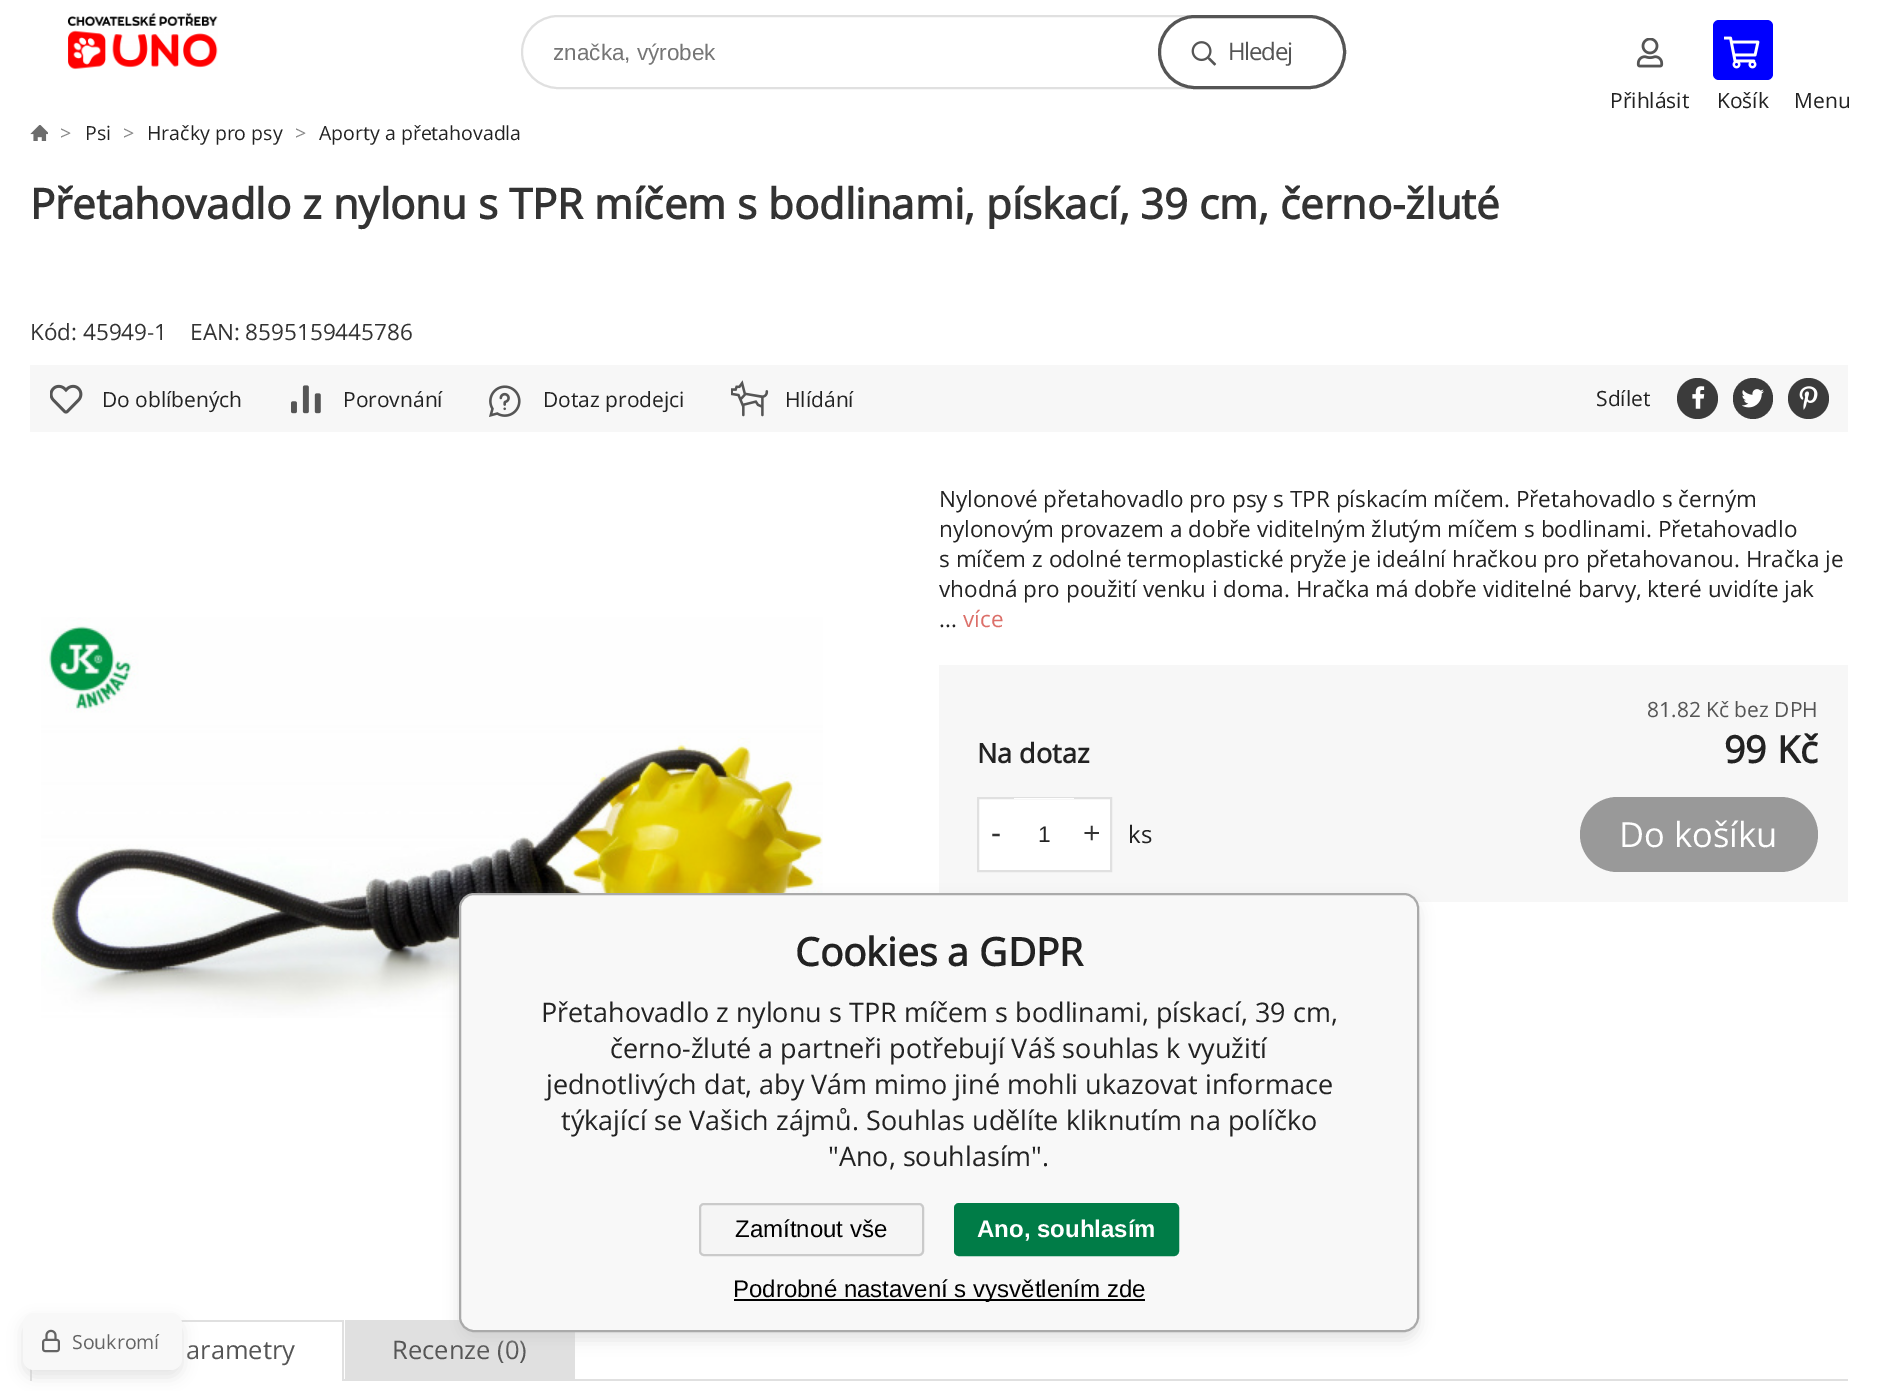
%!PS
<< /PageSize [1878 1391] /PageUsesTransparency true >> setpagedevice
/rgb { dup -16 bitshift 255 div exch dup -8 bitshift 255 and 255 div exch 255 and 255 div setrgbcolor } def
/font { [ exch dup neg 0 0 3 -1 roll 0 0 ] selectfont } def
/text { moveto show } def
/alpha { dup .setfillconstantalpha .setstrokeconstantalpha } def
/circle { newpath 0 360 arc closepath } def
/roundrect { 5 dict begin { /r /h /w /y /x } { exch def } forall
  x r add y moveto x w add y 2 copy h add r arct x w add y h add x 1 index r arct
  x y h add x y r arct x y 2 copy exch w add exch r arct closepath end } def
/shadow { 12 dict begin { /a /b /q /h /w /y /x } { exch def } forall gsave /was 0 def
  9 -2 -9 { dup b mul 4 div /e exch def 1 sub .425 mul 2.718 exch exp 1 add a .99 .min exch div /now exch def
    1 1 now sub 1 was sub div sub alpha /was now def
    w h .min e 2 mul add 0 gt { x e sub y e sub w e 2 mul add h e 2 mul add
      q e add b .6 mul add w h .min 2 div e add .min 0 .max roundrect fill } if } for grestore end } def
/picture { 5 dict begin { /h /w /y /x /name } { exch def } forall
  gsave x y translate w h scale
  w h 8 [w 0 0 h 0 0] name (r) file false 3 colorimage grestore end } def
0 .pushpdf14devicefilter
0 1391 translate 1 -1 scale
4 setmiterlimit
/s1 { /LiberationSans-Regular 22.5 font 16#757575 rgb } def
/s2 { /OpenSans-Regular 21 font 16#222222 rgb } def
/s3 { /OpenSans-Regular 19.5 font 16#888888 rgb } def
/s4 { /OpenSans-Regular 19.5 font 16#222222 rgb } def
/s5 { /OpenSans-Bold 42 font 16#333333 rgb } def
/s6 { /OpenSans-Regular 22.5 font 16#333333 rgb } def
/s7 { /OpenSans-Regular 22.5 font 16#222222 rgb } def
/s8 { /OpenSans-Regular 22.5 font 16#DC6F69 rgb } def
/s9 { /OpenSans-Regular 21 font 16#555555 rgb } def
/s10 { /OpenSans-Bold 27 font 16#222222 rgb } def
/s11 { /OpenSans-Bold 37.5 font 16#222222 rgb } def
/s12 { /LiberationSans-Regular 30 font 16#333333 rgb } def
/s13 { /LiberationSans-Regular 22.5 font 16#222222 rgb } def
/s14 { /OpenSans-Regular 24 font 16#222222 rgb } def
/s15 { /OpenSans-Regular 34.5 font 16#FFFFFF rgb } def
/s16 { /OpenSans-Regular 25.5 font 16#555555 rgb } def
/s17 { /OpenSans-Bold 39 font 16#222222 rgb } def
/s18 { /OpenSans-Regular 27 font 16#222222 rgb } def
/s19 { /LiberationSans-Regular 24 font 16#000000 rgb } def
/s20 { /LiberationSans-Bold 24 font 16#FFFFFF rgb } def
/s21 { /OpenSans-Regular 19.5 font 16#646464 rgb } def
16#FFFFFF rgb
0 0 1878 1391 rectfill
(pic1.raw) 67 12 151 58 picture
16#E0E0E0 rgb
2 setlinewidth
522 16 823 72 36 roundrect stroke
s1
(značka, výrobek) 553 60 text
(pic2.raw) 1191 41 26 25 picture
16#555555 rgb
3 setlinewidth
1159.5 16.5 185 71 35.5 roundrect stroke
/OpenSans-Regular 24 font
1228 60 moveto -1.25 0 (Hledej) ashow
(pic3.raw) 1636 38 28 30 picture
s2
(Přihlásit) 1610 108 text
16#0000FF rgb
1713 20 60 60 6 roundrect fill
(pic4.raw) 1724 36 36 33 picture
s2
(Košík) 1717 108 text
(Menu) 1794 108 text
(pic5.raw) 30 125 18 16 picture
s3
(>) 60 140 text
s4
(Psi) 85 140 text
s3
(>) 123 140 text
s4
(Hračky pro psy) 147 140 text
s3
(>) 295 140 text
s4
(Aporty a přetahovadla) 319 140 text
s5
(Přetahovadlo z nylonu s TPR míčem s bodlinami, pískací, 39 cm, černo-žluté) 30 219 text
s6
(Kód: 45949-1) 30 340 text
(EAN: 8595159445786) 190 340 text
16#F7F7F7 rgb
30 365 1818 67 rectfill
(pic6.raw) 50 384 33 30 picture
s2
(Do oblíbených) 102 407 text
(pic7.raw) 291 385 30 29 picture
(Porovnání) 343 407 text
(pic8.raw) 489 385 32 32 picture
(Dotaz prodejci) 543 407 text
(pic9.raw) 731 380 38 37 picture
(Hlídání) 785 407 text
(Sdílet) 1596 406 text
16#3B3B3B rgb
1697.5 398.5 20.5 circle fill
(pic10.raw) 1692 386 13 23 picture
1733 378 40 41 20 roundrect fill
(pic11.raw) 1742 389 22 19 picture
1808.5 398.5 20.5 circle fill
(pic12.raw) 1799 386 19 24 picture
(pic13.raw) 41 617 782 401 picture
s7
(Nylonové přetahovadlo pro psy s TPR pískacím míčem. Přetahovadlo s černým) 939 507 text
(nylonovým provazem a dobře viditelným žlutým míčem s bodlinami. Přetahovadlo) 939 537 text
(s míčem z odolné termoplastické pryže je ideální hračkou pro přetahovanou. Hračka je) 939 567 text
(vhodná pro použití venku i doma. Hračka má dobře viditelné barvy, které uvidíte jak) 939 597 text
(...) 939 627 text
s8
(více) 963 627 text
16#F7F7F7 rgb
939 665 909 237 rectfill
s9
(81.82 Kč bez DPH) 1647 717 text
s10
(Na dotaz) 977 763 text
s11
(99 Kč) 1724 763 text
16#FFFFFF rgb
978 798 moveto 1111 798 lineto 1111 871 lineto 978 871 lineto closepath gsave fill grestore
16#E0E0E0 rgb
2 setlinewidth
stroke
s12
(-) 991 843 text
16#FFFFFF rgb
1014 798 60 1 rectfill
s13
(1) 1038 842 text
s12
(+) 1083 843 text
s14
(ks) 1128 843 text
16#999999 rgb
1580 797 238 75 37.5 roundrect fill
s15
(Do košíku) 1619 847 text
16#E0E0E0 rgb
30 1379 1818 2 rectfill
181 1320 163 2 rectfill
342 1320 2 59 rectfill
30 1369 2 10 rectfill
s16
(arametry) 186 1359 text
16#FFFFFF rgb
32 1379 310 2 rectfill
16#E0E0E0 rgb
345 1320 230 59 rectfill
s16
(Recenze \(0\)) 392 1359 text
16#C8C8C8 rgb
459 900 960 440 15 7.5 0.5 shadow
16#F8F8F8 rgb
460 894 958 437 14 roundrect gsave fill grestore
16#AAAAAA rgb
stroke
s17
(Cookies a GDPR) 795 966 text
s18
(Přetahovadlo z nylonu s TPR míčem s bodlinami, pískací, 39 cm,) 541 1022 text
(černo-žluté a partneři potřebují Váš souhlas k využití) 610 1058 text
(jednotlivých dat, aby Vám mimo jiné mohli ukazovat informace) 546 1094 text
(týkající se Vašich zájmů. Souhlas udělíte kliknutím na políčko) 561 1130 text
("Ano, souhlasím".) 828 1166 text
16#F5F5F5 rgb
700 1204 223 51 4 roundrect gsave fill grestore
16#CACACA rgb
stroke
s19
(Zamítnout vše) 735 1237 text
16#007C47 rgb
955 1204 223 51 4 roundrect gsave fill grestore
stroke
s20
(Ano, souhlasím) 977 1237 text
16#000000 rgb
734 1299 411 2 rectfill
s19
(Podrobné nastavení s vysvětlením zde) 733 1297 text
16#C8C8C8 rgb
23 1320 159 57 11 7.5 0.5 shadow
16#F8F8F8 rgb
23 1313 159 57 11 roundrect fill
(pic14.raw) 42 1329 18 24 picture
s21
(Soukromí) 72 1349 text
.poppdf14devicefilter showpage
